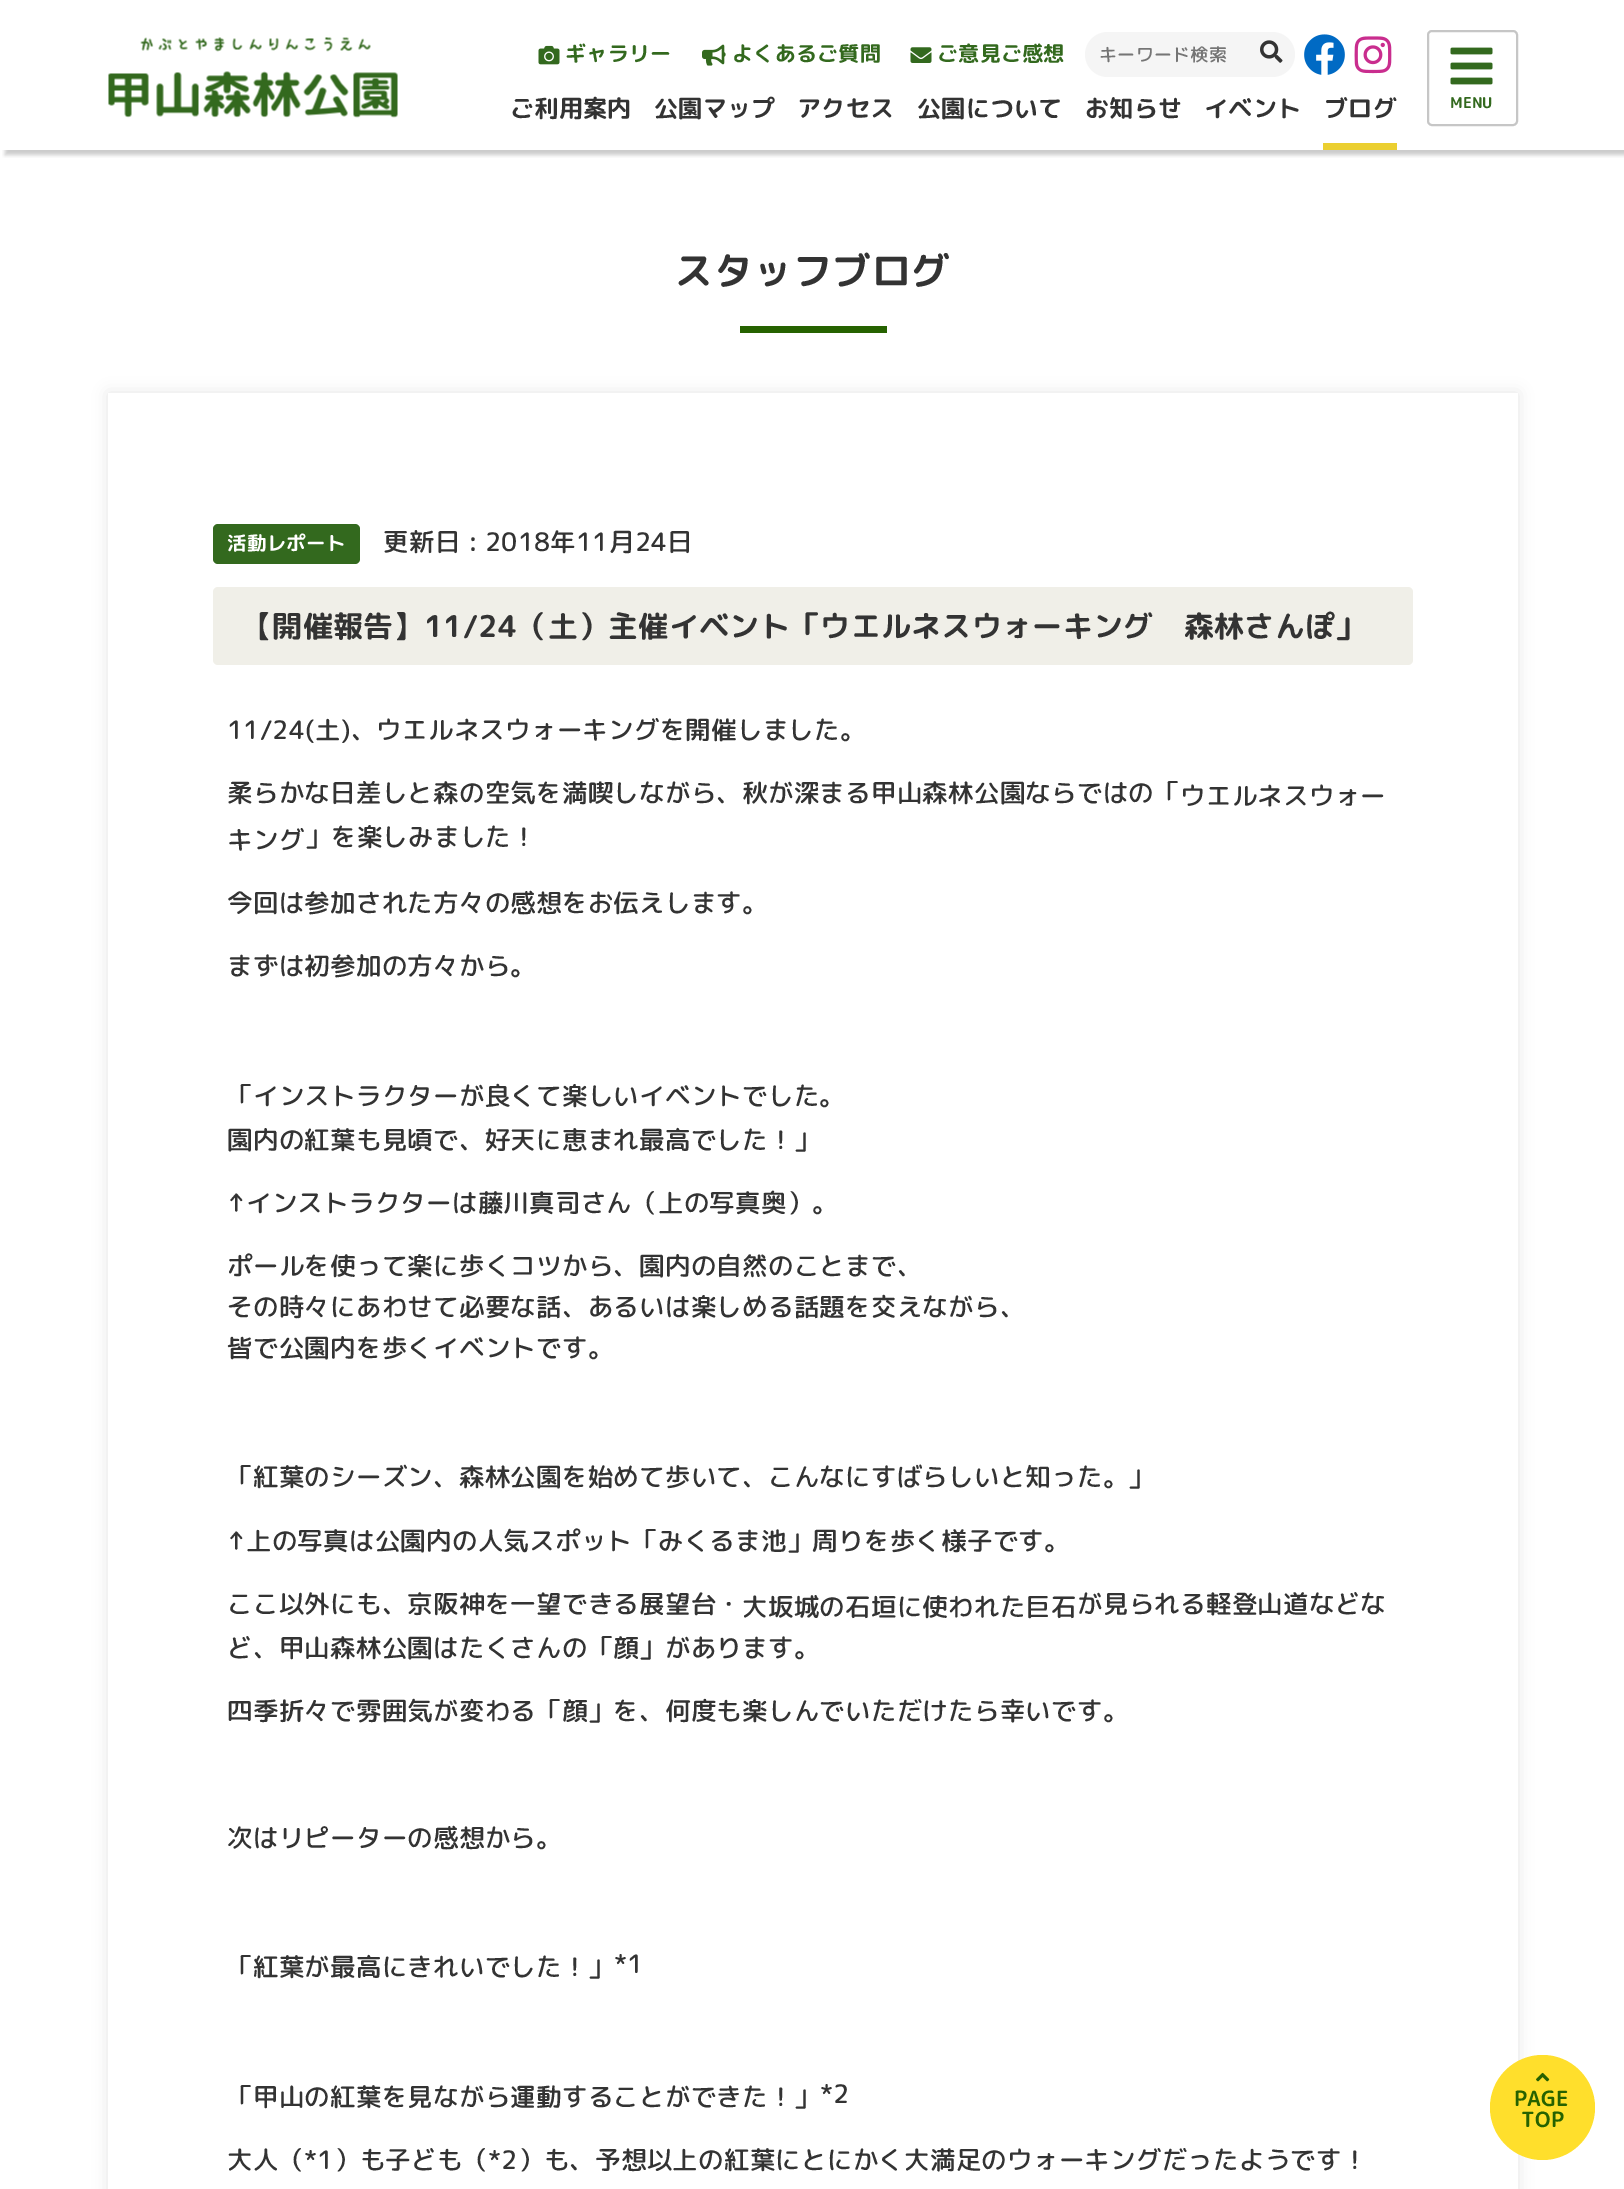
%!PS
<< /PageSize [1624 2189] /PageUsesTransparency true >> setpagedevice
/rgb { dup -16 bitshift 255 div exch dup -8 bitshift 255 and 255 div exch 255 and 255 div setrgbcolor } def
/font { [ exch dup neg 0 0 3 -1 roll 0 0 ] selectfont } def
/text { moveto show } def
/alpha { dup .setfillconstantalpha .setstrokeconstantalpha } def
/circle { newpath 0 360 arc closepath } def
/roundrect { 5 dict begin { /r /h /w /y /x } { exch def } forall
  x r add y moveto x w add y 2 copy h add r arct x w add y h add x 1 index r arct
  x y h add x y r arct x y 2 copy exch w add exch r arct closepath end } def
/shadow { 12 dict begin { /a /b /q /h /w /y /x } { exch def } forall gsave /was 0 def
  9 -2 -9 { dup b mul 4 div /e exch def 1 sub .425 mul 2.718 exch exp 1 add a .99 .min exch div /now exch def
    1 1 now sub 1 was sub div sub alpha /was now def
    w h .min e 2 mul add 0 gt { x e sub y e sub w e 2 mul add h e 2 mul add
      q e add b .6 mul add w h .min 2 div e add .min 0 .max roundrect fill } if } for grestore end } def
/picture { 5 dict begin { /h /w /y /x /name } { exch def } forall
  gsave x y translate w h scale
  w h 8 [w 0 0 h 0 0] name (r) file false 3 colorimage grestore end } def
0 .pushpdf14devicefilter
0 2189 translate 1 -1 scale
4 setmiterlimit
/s1 { /RoundedMplus1cBold-Bold 15 font 16#33691E rgb } def
16#FFFFFF rgb
0 0 1624 2189 rectfill
gsave
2 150 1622 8 rectclip
16#000000 rgb
5 5 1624 150 0 2 0.2 shadow
grestore
(pic1.raw) 108 37 290 81 picture
(pic2.raw) 538 45 22 20 picture
/RoundedMplus1cBold-Bold 21 font
16#33691E rgb
565 61 moveto 0.25 0 (ギャラリー) ashow
(pic3.raw) 702 44 24 22 picture
732 61 moveto 0.25 0 (よくあるご質問) ashow
(pic4.raw) 910 47 22 16 picture
937 61 moveto 0.25 0 (ご意見ご感想) ashow
16#F5F5F5 rgb
1085 32 210 45 22.5 roundrect fill
/RoundedMplus1c-Medium 18 font
16#757575 rgb
1099 61 moveto 0.25 0 (キーワード検索) ashow
(pic5.raw) 1260 40 23 23 picture
(pic6.raw) 1304 34 41 41 picture
(pic7.raw) 1354 36 38 38 picture
/RoundedMplus1cBold-Bold 24 font
16#333333 rgb
510 117 moveto 0.25 0 (ご利用案内) ashow
654 117 moveto 0.25 0 (公園マップ) ashow
797 117 moveto 0.25 0 (アクセス) ashow
917 117 moveto 0.25 0 (公園について) ashow
1085 117 moveto 0.25 0 (お知らせ) ashow
1204 117 moveto 0.25 0 (イベント) ashow
16#EBCF30 rgb
1323 143 74 7 rectfill
16#333333 rgb
1324 117 moveto 0.25 0 (ブログ) ashow
16#C6C6C6 rgb
2 setlinewidth
1428 31 89 94 4 roundrect stroke
(pic8.raw) 1450 47 43 38 picture
s1
(MENU) 1450 108 text
/RoundedMplus1cBold-Bold 39 font
16#333333 rgb
674 285 moveto 0.5 0 (スタッフブログ) ashow
16#266200 rgb
740 326 147 7 rectfill
gsave
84 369 moveto 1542 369 lineto 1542 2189 lineto 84 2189 lineto closepath 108 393 moveto 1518 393 lineto 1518 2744 lineto 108 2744 lineto closepath eoclip newpath
16#000000 rgb
108 393 1410 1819 0 7.5 0.1 shadow
grestore
16#33691E rgb
213 524 147 40 5 roundrect fill
/RoundedMplus1cBold-Bold 19.5 font
16#FFFFFF rgb
227 550 moveto 0.25 0 (活動レポート) ashow
/RoundedMplus1c-Medium 25.5 font
16#333333 rgb
383 551 moveto 0.25 0 (更新日 : 2018年11月24日) ashow
16#F0EFE8 rgb
213 587 1200 78 5 roundrect fill
/RoundedMplus1cBold-Bold 30 font
16#333333 rgb
242 637 moveto 0.3 0 (【開催報告】11/24（土）主催イベント「ウエルネスウォーキング　森林さんぽ」) ashow
/RoundedMplus1c-Medium 25.5 font
227 739 moveto 0.25 0 (11/24\(土\)、ウエルネスウォーキングを開催しました。) ashow
227 802 moveto 0.25 0 (柔らかな日差しと森の空気を満喫しながら、秋が深まる甲山森林公園ならではの「) ashow
1180 805 moveto 0.25 0 (ウエルネスウォー) ashow
227 849 moveto 0.25 0 (キング) ashow
305 846 moveto 0.25 0 (」を楽しみました！) ashow
227 912 moveto 0.25 0 (今回は参加された方々の感想をお伝えします。) ashow
227 975 moveto 0.25 0 (まずは初参加の方々から。) ashow
227 1105 moveto 0.25 0 (「インストラクターが良くて楽しいイベントでした。) ashow
227 1149 moveto 0.25 0 (園内の紅葉も見頃で、好天に恵まれ最高でした！」) ashow
227 1212 moveto 0.25 0 (↑インストラクターは藤川真司さん（上の写真奥）。) ashow
227 1275 moveto 0.25 0 (ポールを使って楽に歩くコツから、園内の自然のことまで、) ashow
227 1316 moveto 0.25 0 (その時々にあわせて必要な話、あるいは楽しめる話題を交えながら、) ashow
227 1357 moveto 0.25 0 (皆で公園内を歩くイベントです。) ashow
227 1486 moveto 0.25 0 (「紅葉のシーズン、森林公園を始めて歩いて、こんなにすばらしいと知った。」) ashow
227 1550 moveto 0.25 0 (↑上の写真は公園内の人気スポット「みくるま池」周りを歩く様子です。) ashow
227 1613 moveto 0.25 0 (ここ以外にも、京阪神を一望できる展望台・) ashow
742 1616 moveto 0.25 0 (大坂城の石垣に使われた巨石) ashow
1077 1613 moveto 0.25 0 (が見られる軽登山道などな) ashow
227 1657 moveto 0.25 0 (ど、甲山森林公園はたくさんの「顔」があります。) ashow
227 1720 moveto 0.25 0 (四季折々で雰囲気が変わる「顔」を、何度も楽しんでいただけたら幸いです。) ashow
227 1847 moveto 0.25 0 (次はリピーターの感想から。) ashow
227 1976 moveto 0.25 0 (「紅葉が最高にきれいでした！」) ashow
614 1973 moveto 0.25 0 (*1) ashow
227 2106 moveto 0.25 0 (「甲山の紅葉を見ながら運動することができた！」) ashow
820 2103 moveto 0.25 0 (*2) ashow
227 2169 moveto 0.25 0 (大人（*1）も子ども（*2）も、予想以上の紅葉にとにかく大満足のウォーキングだったようです！) ashow
16#FFDF2C rgb
1542.5 2107.5 52.5 circle fill
(pic9.raw) 1536 2072 14 10 picture
/RoundedMplus1cBold-Bold 21 font
16#266200 rgb
1514 2106 moveto 0.25 0 (PAGE) ashow
1521 2127 moveto 0.25 0 (TOP) ashow
.poppdf14devicefilter showpage
